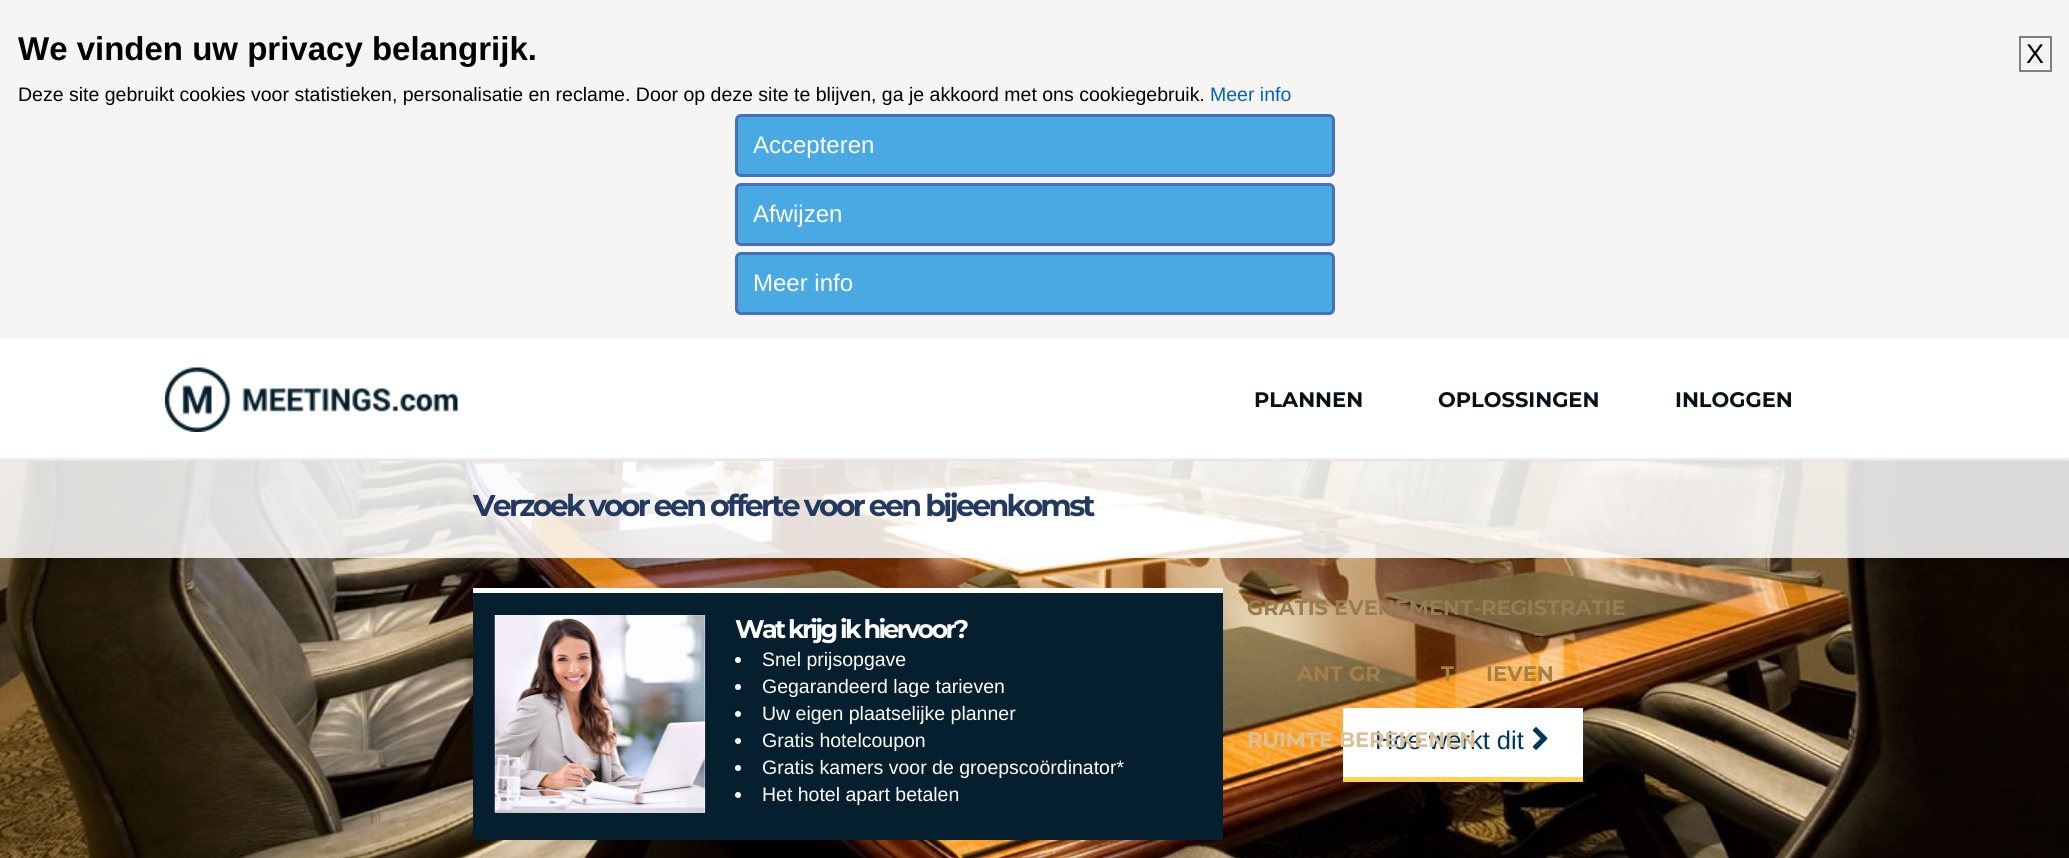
import math
import cairocffi as cairo

surface = cairo.ImageSurface(cairo.FORMAT_RGB24, 2069, 858)
cr = cairo.Context(surface)
options = cairo.FontOptions()
options.set_hint_metrics(cairo.HINT_METRICS_OFF)
options.set_hint_style(cairo.HINT_STYLE_NONE)
cr.set_font_options(options)
cr.set_miter_limit(4)


def use_color(code):
    cr.set_source_rgb(*(v / 255 for v in bytes.fromhex(code[-6:])))


def spaced_text(x, y, s, letter, word):
    cr.move_to(x, y)
    for ch in s:
        cr.show_text(ch)
        cr.rel_move_to(letter + word * (ch == ' '), 0)


def round_rect(x, y, w, h, r):
    cr.new_sub_path()
    for i, (u, v) in enumerate([(x + w - r, y + h - r), (x + r, y + h - r), (x + r, y + r), (x + w - r, y + r)]):
        cr.arc(u, v, r, i * math.pi / 2, (i + 1) * math.pi / 2)
    cr.close_path()


def picture(path, x, y, w, h):
    cr.save()
    cr.set_source_surface(cairo.ImageSurface.create_from_png(path), x, y)
    cr.rectangle(x, y, w, h)
    cr.fill()
    cr.restore()


use_color("#ffffff")
cr.paint()
use_color("#f7f4f4")
cr.rectangle(0, 0, 2069, 339)
cr.fill()
cr.select_font_face("Liberation Sans", cairo.FONT_SLANT_NORMAL, cairo.FONT_WEIGHT_BOLD)
cr.set_font_size(33)
use_color("#000000")
cr.move_to(18, 60)
cr.show_text("We vinden uw privacy belangrijk.")
cr.select_font_face("Liberation Sans")
cr.set_font_size(19.5)
cr.move_to(18, 101)
cr.show_text("Deze site gebruikt cookies voor statistieken, personalisatie en reclame. Door op deze site te blijven, ga je akkoord met ons cookiegebruik.")
use_color("#0065b8")
cr.move_to(1210, 101)
cr.show_text("Meer info")
cr.rectangle(2020, 37, 31, 34)
use_color("#808080")
cr.stroke()
cr.set_font_size(27)
use_color("#000000")
cr.move_to(2026, 63)
cr.show_text("X")
use_color("#49a9e3")
round_rect(736.5, 115.5, 597, 60, 4.5)
cr.fill_preserve()
use_color("#4770b9")
cr.set_line_width(3)
cr.stroke()
cr.set_font_size(24)
use_color("#ffffff")
cr.move_to(753, 153)
cr.show_text("Accepteren")
use_color("#49a9e3")
round_rect(736.5, 184.5, 597, 60, 4.5)
cr.fill_preserve()
use_color("#4770b9")
cr.stroke()
use_color("#ffffff")
cr.move_to(753, 222)
cr.show_text("Afwijzen")
use_color("#49a9e3")
round_rect(736.5, 253.5, 597, 60, 4.5)
cr.fill_preserve()
use_color("#4770b9")
cr.stroke()
use_color("#ffffff")
cr.move_to(753, 291)
cr.show_text("Meer info")
use_color("#eeeeee")
cr.rectangle(0, 458, 2069, 2)
cr.fill()
picture("img1.png", 165, 367, 293, 65)
cr.select_font_face("Montserrat", cairo.FONT_SLANT_NORMAL, cairo.FONT_WEIGHT_BOLD)
cr.set_font_size(21)
use_color("#071019")
cr.move_to(1254, 407)
cr.show_text("PLANNEN")
picture("img2.png", 0, 461, 2069, 397)
use_color("#977c54")
cr.move_to(1247, 615)
cr.show_text("GRATIS EVENEMENT-REGISTRATIE")
use_color("#a67e47")
cr.move_to(1297, 681)
cr.show_text("ANT GR")
cr.move_to(1441, 681)
cr.show_text("T")
cr.move_to(1486, 681)
cr.show_text("IEVEN")
use_color("#ffffff")
cr.rectangle(1343, 708, 240, 69)
cr.fill()
cr.select_font_face("Liberation Sans")
cr.set_font_size(25.5)
use_color("#003656")
cr.move_to(1375, 749)
cr.show_text("Hoe werkt dit")
cr.select_font_face("Montserrat", cairo.FONT_SLANT_NORMAL, cairo.FONT_WEIGHT_BOLD)
cr.set_font_size(21)
use_color("#dbc199")
cr.move_to(1247, 747)
cr.show_text("RUIMTE BEREKENEN")
use_color("#071019")
cr.move_to(1438, 407)
cr.show_text("OPLOSSINGEN")
cr.move_to(1675, 407)
cr.show_text("INLOGGEN")
use_color("#e6e1e1")
cr.rectangle(0, 460, 2069, 1)
cr.fill()
cr.set_source_rgba(1, 1, 1, 0.85)
cr.rectangle(0, 461, 2069, 97)
cr.fill()
cr.set_font_size(30)
use_color("#24395e")
spaced_text(473, 516, "Verzoek voor een offerte voor een bijeenkomst", -2.7, 0)
use_color("#051f2e")
cr.rectangle(473, 593, 750, 247)
cr.fill()
use_color("#ffffff")
cr.rectangle(473, 588, 750, 5)
cr.fill()
cr.rectangle(495, 615, 210, 198)
cr.fill()
picture("img3.png", 494, 615, 212, 198)
cr.set_font_size(25.5)
spaced_text(735, 638, "Wat krijg ik hiervoor?", -2.7, 0)
cr.new_path()
cr.arc(738, 660, 3, 0, 2 * math.pi)
cr.fill()
cr.select_font_face("Liberation Sans")
cr.set_font_size(19.5)
cr.move_to(762, 666)
cr.show_text("Snel prijsopgave")
cr.new_path()
cr.arc(738, 687, 3, 0, 2 * math.pi)
cr.fill()
cr.move_to(762, 693)
cr.show_text("Gegarandeerd lage tarieven")
cr.new_path()
cr.arc(738, 714, 3, 0, 2 * math.pi)
cr.fill()
cr.move_to(762, 720)
cr.show_text("Uw eigen plaatselijke planner")
cr.new_path()
cr.arc(738, 741, 3, 0, 2 * math.pi)
cr.fill()
cr.move_to(762, 747)
cr.show_text("Gratis hotelcoupon")
cr.new_path()
cr.arc(738, 768, 3, 0, 2 * math.pi)
cr.fill()
cr.move_to(762, 774)
cr.show_text("Gratis kamers voor de groepscoördinator*")
cr.new_path()
cr.arc(738, 795, 3, 0, 2 * math.pi)
cr.fill()
cr.move_to(762, 801)
cr.show_text("Het hotel apart betalen")
use_color("#ffd251")
cr.rectangle(1343, 777, 240, 5)
cr.fill()
picture("img4.png", 1532, 727, 16, 23)
surface.write_to_png("result.png")
